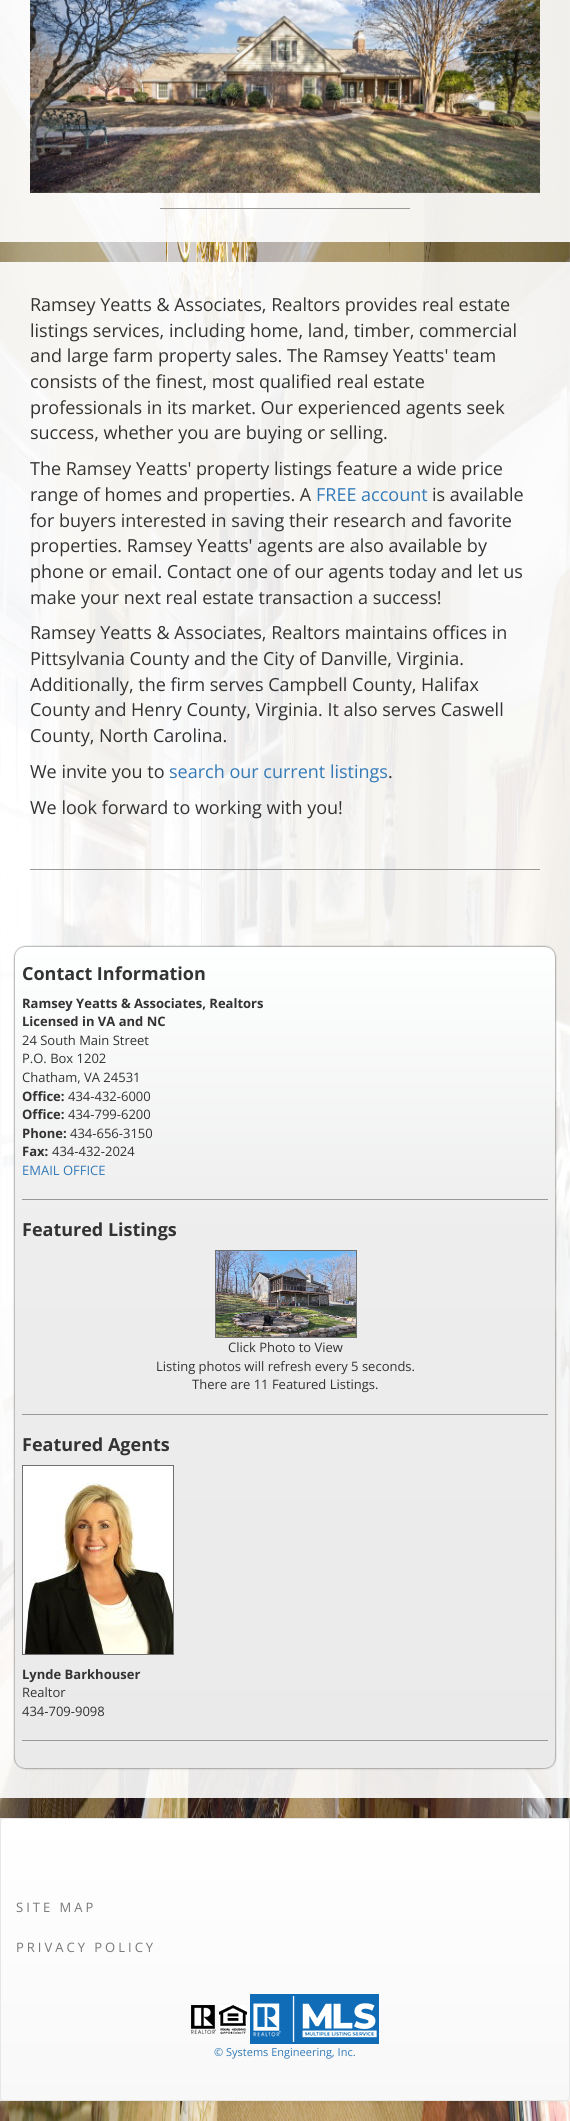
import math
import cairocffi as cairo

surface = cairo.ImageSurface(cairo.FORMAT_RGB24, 570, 2121)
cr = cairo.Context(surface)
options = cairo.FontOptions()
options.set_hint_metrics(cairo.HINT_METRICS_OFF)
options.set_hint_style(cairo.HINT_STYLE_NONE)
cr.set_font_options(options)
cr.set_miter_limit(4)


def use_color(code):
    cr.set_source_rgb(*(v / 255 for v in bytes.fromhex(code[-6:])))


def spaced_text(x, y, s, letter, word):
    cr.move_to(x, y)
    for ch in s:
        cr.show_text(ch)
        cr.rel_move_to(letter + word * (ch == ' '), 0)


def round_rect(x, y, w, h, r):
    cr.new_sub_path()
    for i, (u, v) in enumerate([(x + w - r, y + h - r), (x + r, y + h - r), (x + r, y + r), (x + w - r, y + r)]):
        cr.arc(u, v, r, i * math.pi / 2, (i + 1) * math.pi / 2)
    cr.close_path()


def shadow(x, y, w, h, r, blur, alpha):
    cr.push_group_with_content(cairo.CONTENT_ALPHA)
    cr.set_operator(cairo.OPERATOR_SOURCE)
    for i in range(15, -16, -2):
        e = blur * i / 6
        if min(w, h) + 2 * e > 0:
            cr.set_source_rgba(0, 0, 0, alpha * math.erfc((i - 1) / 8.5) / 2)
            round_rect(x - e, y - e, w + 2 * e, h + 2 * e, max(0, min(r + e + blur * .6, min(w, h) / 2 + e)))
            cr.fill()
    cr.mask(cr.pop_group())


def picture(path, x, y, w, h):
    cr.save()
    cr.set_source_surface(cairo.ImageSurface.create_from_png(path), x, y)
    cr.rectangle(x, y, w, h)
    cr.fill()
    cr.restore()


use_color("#ffffff")
cr.paint()
picture("img1.png", 0, 0, 570, 2121)
cr.set_source_rgba(1, 1, 1, 0.9)
cr.rectangle(0, 0, 570, 242)
cr.fill()
picture("img2.png", 30, 0, 510, 193)
gradient = cairo.LinearGradient(30, 77, 107, 77)
gradient.add_color_stop_rgba(0, 0, 0, 0, 0.25)
gradient.add_color_stop_rgba(1, 0, 0, 0, 0)
cr.set_source(gradient)
cr.rectangle(30, 0, 70, 193)
cr.fill()
cr.select_font_face("Liberation Serif")
cr.set_font_size(20)
use_color("#bcb5b2")
cr.move_to(65, 84)
cr.show_text("‹")
gradient = cairo.LinearGradient(464, 77, 540, 77)
gradient.add_color_stop_rgba(0, 0, 0, 0, 0)
gradient.add_color_stop_rgba(1, 0, 0, 0, 0.25)
cr.set_source(gradient)
cr.rectangle(471, 0, 69, 193)
cr.fill()
use_color("#c0c2ba")
cr.move_to(498, 84)
cr.show_text("›")
use_color("#999999")
cr.rectangle(160, 208, 250, 1)
cr.fill()
cr.set_source_rgba(1, 1, 1, 0.9)
cr.rectangle(0, 262, 570, 1536)
cr.fill()
cr.select_font_face("Open Sans")
cr.set_font_size(18)
use_color("#333333")
cr.move_to(30, 311)
cr.show_text("Ramsey Yeatts & Associates, Realtors provides real estate")
cr.move_to(30, 337)
cr.show_text("listings services, including home, land, timber, commercial")
cr.move_to(30, 362)
cr.show_text("and large farm property sales. The Ramsey Yeatts' team")
cr.move_to(30, 388)
cr.show_text("consists of the finest, most qualified real estate")
cr.move_to(30, 414)
cr.show_text("professionals in its market. Our experienced agents seek")
cr.move_to(30, 439)
cr.show_text("success, whether you are buying or selling.")
cr.move_to(30, 475)
cr.show_text("The Ramsey Yeatts' property listings feature a wide price")
cr.move_to(30, 501)
cr.show_text("range of homes and properties. A")
use_color("#337ab7")
cr.move_to(316, 501)
cr.show_text("FREE account")
use_color("#333333")
cr.move_to(432, 501)
cr.show_text("is available")
cr.move_to(30, 527)
cr.show_text("for buyers interested in saving their research and favorite")
cr.move_to(30, 552)
cr.show_text("properties. Ramsey Yeatts' agents are also available by")
cr.move_to(30, 578)
cr.show_text("phone or email. Contact one of our agents today and let us")
cr.move_to(30, 604)
cr.show_text("make your next real estate transaction a success!")
cr.move_to(30, 639)
cr.show_text("Ramsey Yeatts & Associates, Realtors maintains offices in")
cr.move_to(30, 665)
cr.show_text("Pittsylvania County and the City of Danville, Virginia.")
cr.move_to(30, 691)
cr.show_text("Additionally, the firm serves Campbell County, Halifax")
cr.move_to(30, 716)
cr.show_text("County and Henry County, Virginia. It also serves Caswell")
cr.move_to(30, 742)
cr.show_text("County, North Carolina.")
cr.move_to(30, 778)
cr.show_text("We invite you to")
use_color("#337ab7")
cr.move_to(169, 778)
cr.show_text("search our current listings")
use_color("#333333")
cr.move_to(388, 778)
cr.show_text(".")
cr.move_to(30, 814)
cr.show_text("We look forward to working with you!")
use_color("#999999")
cr.rectangle(30, 869, 510, 1)
cr.fill()
use_color("#000000")
shadow(15, 947, 540, 821, 10, 1, 0.75)
gradient = cairo.LinearGradient(285, 947, 285, 1768)
gradient.add_color_stop_rgba(0, 0.996, 1, 1, 1)
gradient.add_color_stop_rgba(0.35, 0.929, 0.929, 0.929, 1)
gradient.add_color_stop_rgba(1, 0.918, 0.918, 0.918, 1)
cr.set_source(gradient)
round_rect(15, 947, 540, 821, 10)
cr.fill()
cr.select_font_face("Open Sans", cairo.FONT_SLANT_NORMAL, cairo.FONT_WEIGHT_BOLD)
use_color("#333333")
cr.move_to(22, 980)
cr.show_text("Contact Information")
cr.set_font_size(13)
cr.move_to(22, 1008)
cr.show_text("Ramsey Yeatts & Associates, Realtors")
cr.move_to(22, 1026)
cr.show_text("Licensed in VA and NC")
cr.select_font_face("Open Sans")
cr.move_to(22, 1045)
cr.show_text("24 South Main Street")
cr.move_to(22, 1063)
cr.show_text("P.O. Box 1202")
cr.move_to(22, 1082)
cr.show_text("Chatham, VA 24531")
cr.select_font_face("Open Sans", cairo.FONT_SLANT_NORMAL, cairo.FONT_WEIGHT_BOLD)
cr.move_to(22, 1101)
cr.show_text("Office:")
cr.select_font_face("Open Sans")
cr.move_to(68, 1101)
cr.show_text("434-432-6000")
cr.select_font_face("Open Sans", cairo.FONT_SLANT_NORMAL, cairo.FONT_WEIGHT_BOLD)
cr.move_to(22, 1119)
cr.show_text("Office:")
cr.select_font_face("Open Sans")
cr.move_to(68, 1119)
cr.show_text("434-799-6200")
cr.select_font_face("Open Sans", cairo.FONT_SLANT_NORMAL, cairo.FONT_WEIGHT_BOLD)
cr.move_to(22, 1138)
cr.show_text("Phone:")
cr.select_font_face("Open Sans")
cr.move_to(70, 1138)
cr.show_text("434-656-3150")
cr.select_font_face("Open Sans", cairo.FONT_SLANT_NORMAL, cairo.FONT_WEIGHT_BOLD)
cr.move_to(22, 1156)
cr.show_text("Fax:")
cr.select_font_face("Open Sans")
cr.move_to(52, 1156)
cr.show_text("434-432-2024")
use_color("#337ab7")
cr.move_to(22, 1175)
cr.show_text("EMAIL OFFICE")
use_color("#999999")
cr.rectangle(22, 1199, 526, 1)
cr.fill()
cr.select_font_face("Open Sans", cairo.FONT_SLANT_NORMAL, cairo.FONT_WEIGHT_BOLD)
cr.set_font_size(18)
use_color("#333333")
cr.move_to(22, 1236)
cr.show_text("Featured Listings")
cr.rectangle(215.5, 1250.5, 141, 87)
use_color("#6f6f6f")
cr.set_line_width(1)
cr.stroke()
picture("img3.png", 216, 1251, 140, 86)
cr.select_font_face("Open Sans")
cr.set_font_size(13)
use_color("#333333")
cr.move_to(228, 1352)
cr.show_text("Click Photo to View")
cr.move_to(156, 1371)
cr.show_text("Listing photos will refresh every 5 seconds.")
cr.move_to(192, 1389)
cr.show_text("There are 11 Featured Listings.")
use_color("#999999")
cr.rectangle(22, 1414, 526, 1)
cr.fill()
cr.select_font_face("Open Sans", cairo.FONT_SLANT_NORMAL, cairo.FONT_WEIGHT_BOLD)
cr.set_font_size(18)
use_color("#333333")
cr.move_to(22, 1451)
cr.show_text("Featured Agents")
cr.rectangle(22.5, 1465.5, 151, 189)
use_color("#6f6f6f")
cr.stroke()
picture("img4.png", 23, 1466, 150, 188)
cr.set_font_size(13)
use_color("#333333")
cr.move_to(22, 1679)
cr.show_text("Lynde Barkhouser")
cr.select_font_face("Open Sans")
cr.move_to(22, 1697)
cr.show_text("Realtor")
cr.move_to(22, 1716)
cr.show_text("434-709-9098")
use_color("#999999")
cr.rectangle(22, 1740, 526, 1)
cr.fill()
cr.set_source_rgba(1, 1, 1, 0.9)
cr.rectangle(0, 1818, 570, 283)
cr.fill()
use_color("#000000")
shadow(0, 1819, 570, 283, 4, 2.5, 0.07)
cr.save()
round_rect(0, 1818, 570, 283, 4)
cr.clip()
gradient = cairo.LinearGradient(285, 1819, 285, 2100)
gradient.add_color_stop_rgba(0, 1, 1, 1, 1)
gradient.add_color_stop_rgba(1, 0.973, 0.973, 0.973, 1)
cr.set_source(gradient)
cr.rectangle(0, 1819, 570, 281)
cr.fill()
cr.restore()
round_rect(0.5, 1818.5, 569, 282, 3.5)
use_color("#e7e7e7")
cr.stroke()
use_color("#777777")
spaced_text(16, 1912, "SITE MAP", 3, 0)
spaced_text(16, 1952, "PRIVACY POLICY", 3, 0)
picture("img5.png", 191, 2005, 25, 29)
picture("img6.png", 219, 2005, 28, 29)
picture("img7.png", 250, 1994, 129, 50)
cr.set_font_size(11)
use_color("#337ab7")
cr.move_to(214, 2056)
cr.show_text("© Systems Engineering, Inc.")
surface.write_to_png("result.png")
